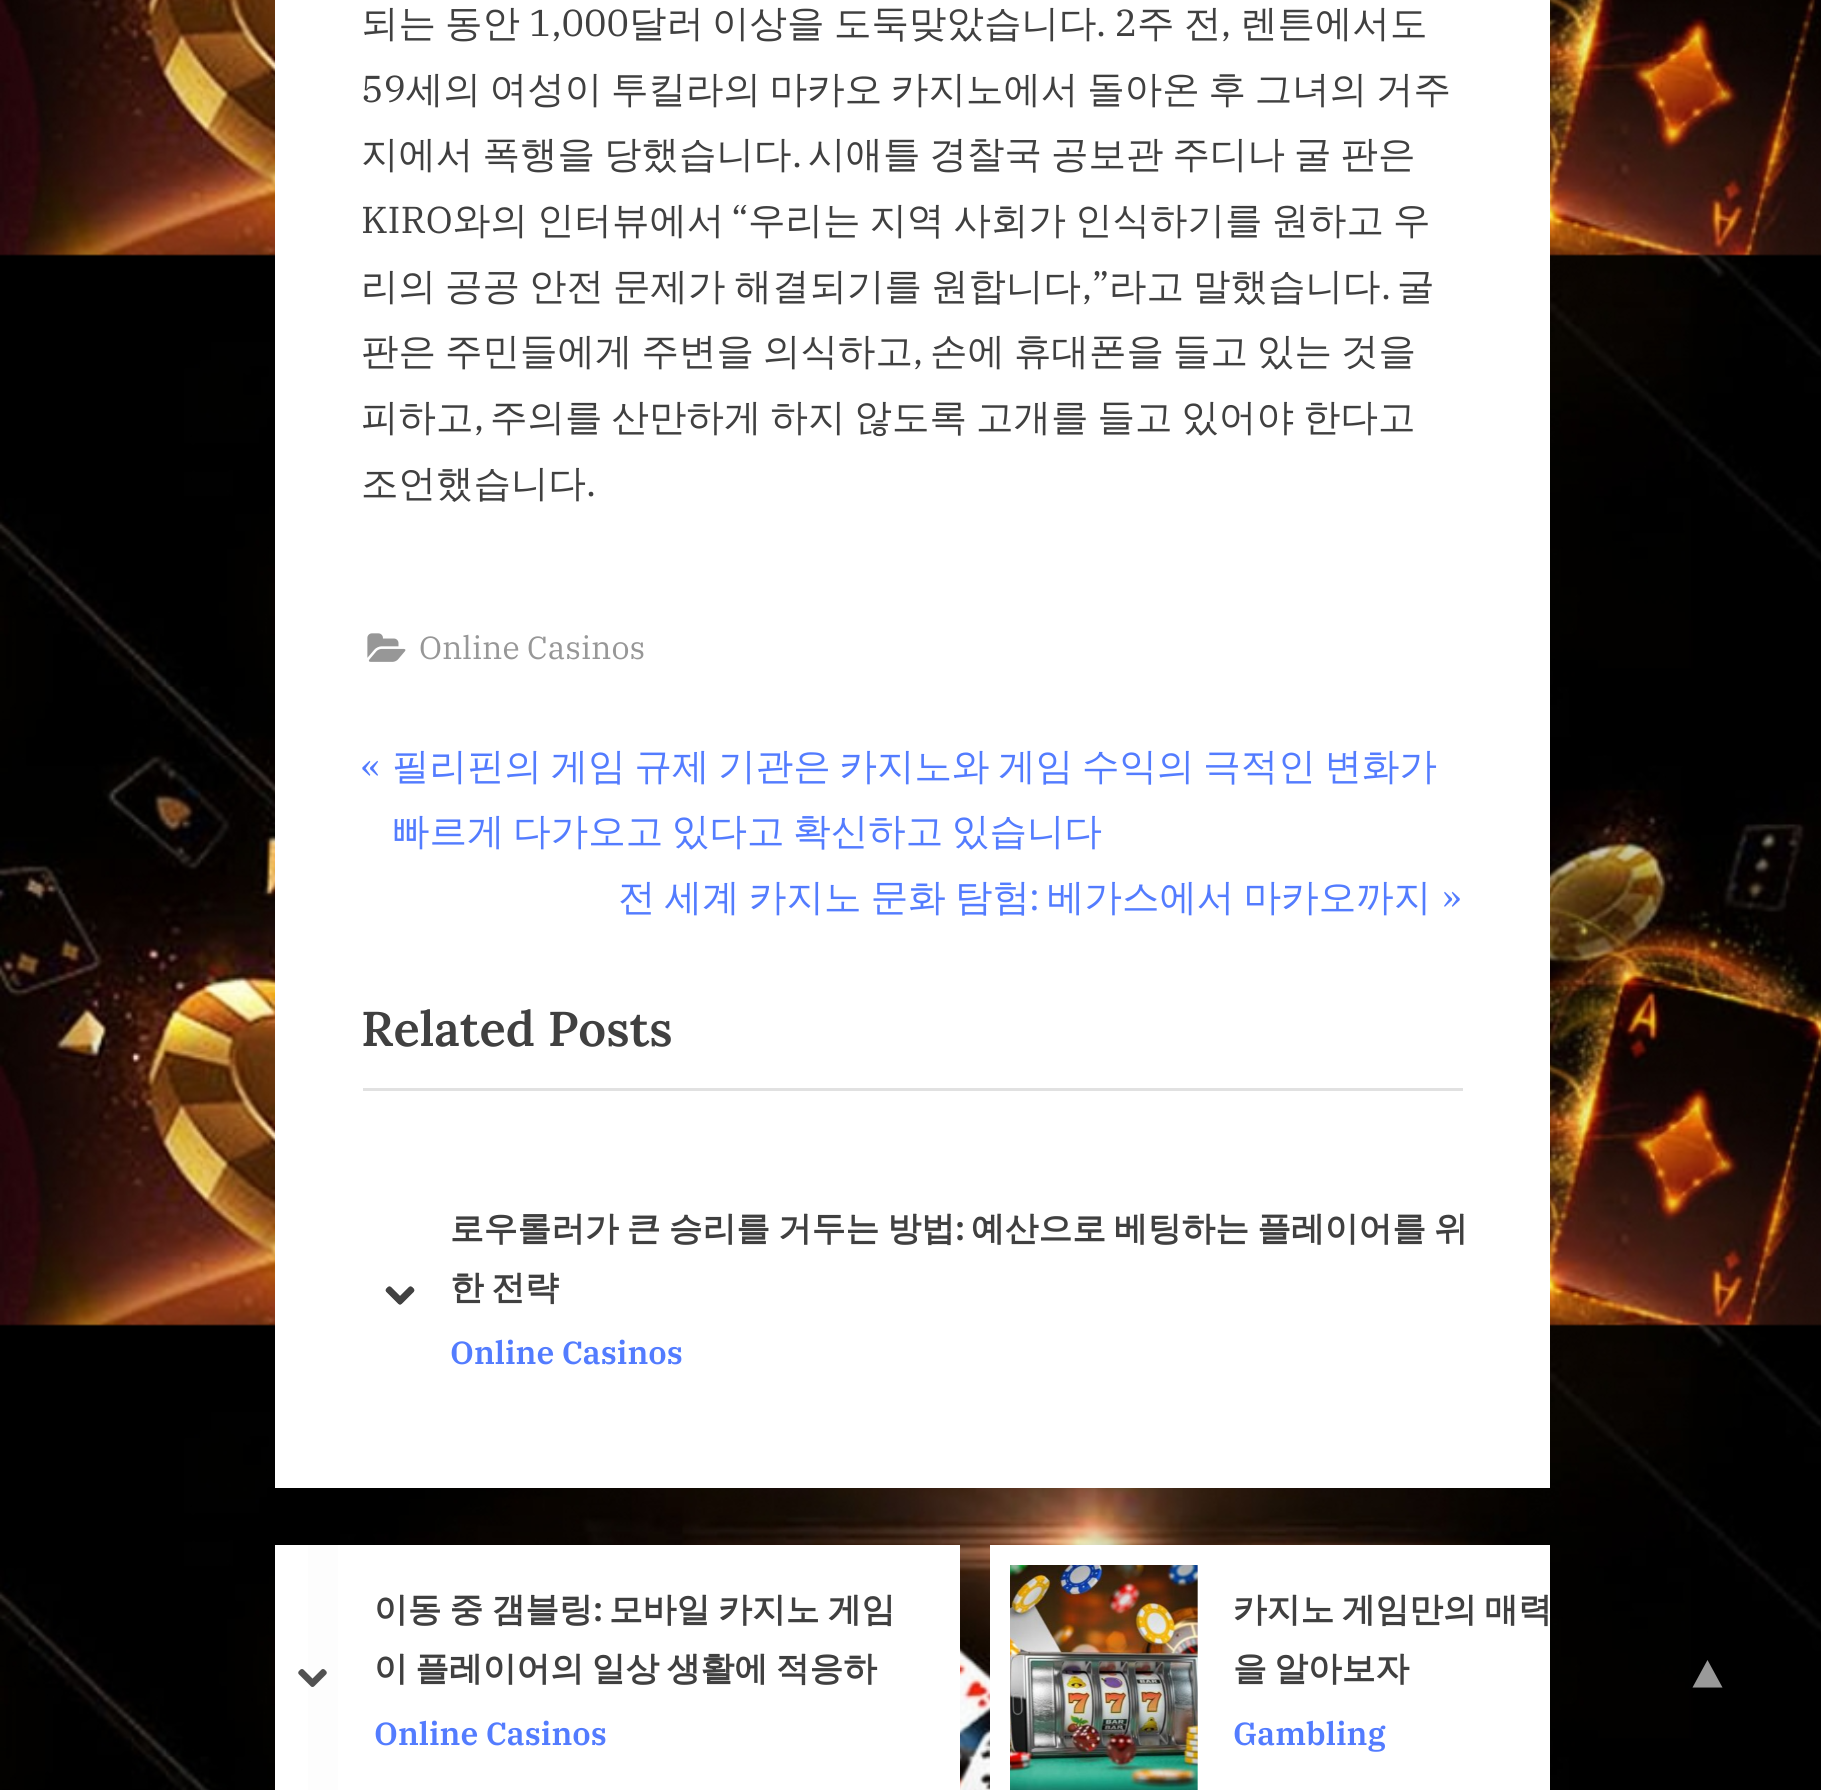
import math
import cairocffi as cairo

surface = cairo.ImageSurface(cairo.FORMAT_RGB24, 1821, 1790)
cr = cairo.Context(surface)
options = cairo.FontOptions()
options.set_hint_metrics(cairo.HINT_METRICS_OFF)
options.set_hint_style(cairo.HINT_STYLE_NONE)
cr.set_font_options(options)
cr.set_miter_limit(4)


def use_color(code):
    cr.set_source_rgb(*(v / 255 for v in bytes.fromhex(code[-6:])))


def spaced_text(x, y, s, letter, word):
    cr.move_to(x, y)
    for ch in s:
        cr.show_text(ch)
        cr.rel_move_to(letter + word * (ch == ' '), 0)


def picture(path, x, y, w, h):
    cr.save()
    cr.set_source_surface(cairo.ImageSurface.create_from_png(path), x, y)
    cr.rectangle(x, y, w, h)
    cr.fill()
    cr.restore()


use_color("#ffffff")
cr.paint()
picture("img1.png", 0, 0, 1821, 1790)
use_color("#ffffff")
cr.rectangle(275, 0, 1275, 1488)
cr.fill()
cr.select_font_face("WenQuanYi Zen Hei Medium")
cr.set_font_size(37.5)
use_color("#404040")
cr.move_to(361, 36)
cr.show_text("되는")
cr.move_to(445, 36)
cr.show_text("동안")
cr.select_font_face("IBM Plex Serif")
cr.move_to(529, 36)
cr.show_text("1,000")
cr.select_font_face("WenQuanYi Zen Hei Medium")
cr.move_to(629, 36)
cr.show_text("달러")
cr.move_to(712, 36)
cr.show_text("이상을")
cr.move_to(834, 36)
cr.show_text("도둑맞았습니다")
cr.select_font_face("IBM Plex Serif")
cr.move_to(1096, 36)
cr.show_text(". 2")
cr.select_font_face("WenQuanYi Zen Hei Medium")
cr.move_to(1137, 36)
cr.show_text("주")
cr.move_to(1184, 36)
cr.show_text("전")
cr.select_font_face("IBM Plex Serif")
cr.move_to(1221, 36)
cr.show_text(",")
cr.select_font_face("WenQuanYi Zen Hei Medium")
cr.move_to(1240, 36)
cr.show_text("렌튼에서도")
cr.select_font_face("IBM Plex Serif")
cr.move_to(361, 102)
cr.show_text("59")
cr.select_font_face("WenQuanYi Zen Hei Medium")
spaced_text(406, 102, "세의 여성이 투킬라의 마카오 카지노에서 돌아온 후 그녀의 거주", 0, -2.5)
spaced_text(361, 167, "지에서 폭행을 당했습니다", 0, -2.25)
cr.select_font_face("IBM Plex Serif")
cr.move_to(792, 167)
cr.show_text(".")
cr.select_font_face("WenQuanYi Zen Hei Medium")
spaced_text(808, 167, "시애틀 경찰국 공보관 주디나 굴 판은", 0, -2.25)
cr.select_font_face("IBM Plex Serif")
cr.move_to(361, 233)
cr.show_text("KIRO")
cr.select_font_face("WenQuanYi Zen Hei Medium")
spaced_text(453, 233, "와의 인터뷰에서", 0, -2.25)
cr.select_font_face("IBM Plex Serif")
cr.move_to(731, 233)
cr.show_text("“")
cr.select_font_face("WenQuanYi Zen Hei Medium")
spaced_text(748, 233, "우리는 지역 사회가 인식하기를 원하고 우", 0, -2.25)
spaced_text(361, 299, "리의 공공 안전 문제가 해결되기를 원합니다", 0, -2.25)
cr.select_font_face("IBM Plex Serif")
cr.move_to(1082, 299)
cr.show_text(",”")
cr.select_font_face("WenQuanYi Zen Hei Medium")
spaced_text(1109, 299, "라고 말했습니다", 0, -2.25)
cr.select_font_face("IBM Plex Serif")
cr.move_to(1381, 299)
cr.show_text(".")
cr.select_font_face("WenQuanYi Zen Hei Medium")
cr.move_to(1397, 299)
cr.show_text("굴")
spaced_text(361, 364, "판은 주민들에게 주변을 의식하고", 0, -2.25)
cr.select_font_face("IBM Plex Serif")
cr.move_to(913, 364)
cr.show_text(",")
cr.select_font_face("WenQuanYi Zen Hei Medium")
spaced_text(930, 364, "손에 휴대폰을 들고 있는 것을", 0, -2.25)
cr.move_to(361, 430)
cr.show_text("피하고")
cr.select_font_face("IBM Plex Serif")
cr.move_to(474, 430)
cr.show_text(",")
cr.select_font_face("WenQuanYi Zen Hei Medium")
spaced_text(490, 430, "주의를 산만하게 하지 않도록 고개를 들고 있어야 한다고", 0, -2.25)
cr.move_to(361, 496)
cr.show_text("조언했습니다")
cr.select_font_face("IBM Plex Serif")
cr.move_to(586, 496)
cr.show_text(".")
picture("img2.png", 367, 633, 39, 29)
cr.set_font_size(32)
use_color("#979797")
cr.move_to(419, 659)
cr.show_text("Online Casinos")
cr.set_font_size(37.5)
use_color("#537cff")
cr.move_to(361, 779)
cr.show_text("«")
cr.select_font_face("WenQuanYi Zen Hei Medium")
spaced_text(392, 779, "필리핀의 게임 규제 기관은 카지노와 게임 수익의 극적인 변화가", 0, -2.5)
spaced_text(392, 844, "빠르게 다가오고 있다고 확신하고 있습니다", 0, -2.5)
spaced_text(618, 910, "전 세계 카지노 문화 탐험", 0, -2)
cr.select_font_face("IBM Plex Serif")
cr.move_to(1029, 910)
cr.show_text(":")
cr.select_font_face("WenQuanYi Zen Hei Medium")
spaced_text(1047, 910, "베가스에서 마카오까지", 0, -2)
cr.select_font_face("IBM Plex Serif")
cr.move_to(1442, 910)
cr.show_text("»")
use_color("#e1e1e1")
cr.rectangle(363, 1088, 1100, 3)
cr.fill()
cr.select_font_face("Lora SemiBold")
cr.set_font_size(48.75)
use_color("#404040")
cr.move_to(361, 1046)
cr.show_text("Related Posts")
picture("img3.png", 385, 1286, 30, 19)
picture("img4.png", 385, 1286, 30, 19)
cr.select_font_face("WenQuanYi Zen Hei", cairo.FONT_SLANT_NORMAL, cairo.FONT_WEIGHT_BOLD)
cr.set_font_size(33.75)
spaced_text(450, 1240, "로우롤러가 큰 승리를 거두는 방법", 0, -2)
cr.select_font_face("IBM Plex Serif SemiBold")
cr.move_to(955, 1240)
cr.show_text(":")
cr.select_font_face("WenQuanYi Zen Hei", cairo.FONT_SLANT_NORMAL, cairo.FONT_WEIGHT_BOLD)
spaced_text(971, 1240, "예산으로 베팅하는 플레이어를 위", 0, -2)
spaced_text(450, 1299, "한 전략", 0, -2.5)
cr.select_font_face("IBM Plex Serif SemiBold")
cr.set_font_size(32)
use_color("#537cff")
cr.move_to(450, 1364)
cr.show_text("Online Casinos")
cr.set_source_rgba(1, 1, 1, 0.9)
cr.rectangle(308, 1545, 30, 245)
cr.fill()
use_color("#ffffff")
cr.rectangle(275, 1545, 33, 245)
cr.fill()
picture("img5.png", 298, 1669, 29, 18)
cr.set_source_rgba(1, 1, 1, 0.9)
cr.rectangle(298, 1545, 40, 245)
cr.fill()
picture("img6.png", 298, 1669, 29, 18)
use_color("#ffffff")
cr.rectangle(338, 1545, 622, 245)
cr.fill()
cr.select_font_face("WenQuanYi Zen Hei", cairo.FONT_SLANT_NORMAL, cairo.FONT_WEIGHT_BOLD)
cr.set_font_size(33.75)
use_color("#404040")
spaced_text(374, 1621, "이동 중 갬블링", 0, -2)
cr.select_font_face("IBM Plex Serif SemiBold")
cr.move_to(593, 1621)
cr.show_text(":")
cr.select_font_face("WenQuanYi Zen Hei", cairo.FONT_SLANT_NORMAL, cairo.FONT_WEIGHT_BOLD)
spaced_text(609, 1621, "모바일 카지노 게임", 0, -2)
spaced_text(374, 1680, "이 플레이어의 일상 생활에 적응하", 0, -2.5)
cr.select_font_face("IBM Plex Serif SemiBold")
cr.set_font_size(32)
use_color("#537cff")
cr.move_to(374, 1745)
cr.show_text("Online Casinos")
use_color("#ffffff")
cr.rectangle(990, 1545, 560, 245)
cr.fill()
picture("img7.png", 1010, 1565, 188, 225)
cr.select_font_face("WenQuanYi Zen Hei", cairo.FONT_SLANT_NORMAL, cairo.FONT_WEIGHT_BOLD)
cr.set_font_size(33.75)
use_color("#404040")
spaced_text(1233, 1621, "카지노 게임만의 매력", 0, -2.5)
spaced_text(1233, 1680, "을 알아보자", 0, -2.5)
cr.select_font_face("IBM Plex Serif SemiBold")
cr.set_font_size(32)
use_color("#537cff")
cr.move_to(1233, 1745)
cr.show_text("Gambling")
use_color("#999999")
cr.new_path()
cr.move_to(1722.5, 1687.5)
cr.line_to(1692.5, 1687.5)
cr.line_to(1707.5, 1660)
cr.close_path()
cr.fill()
surface.write_to_png("result.png")
